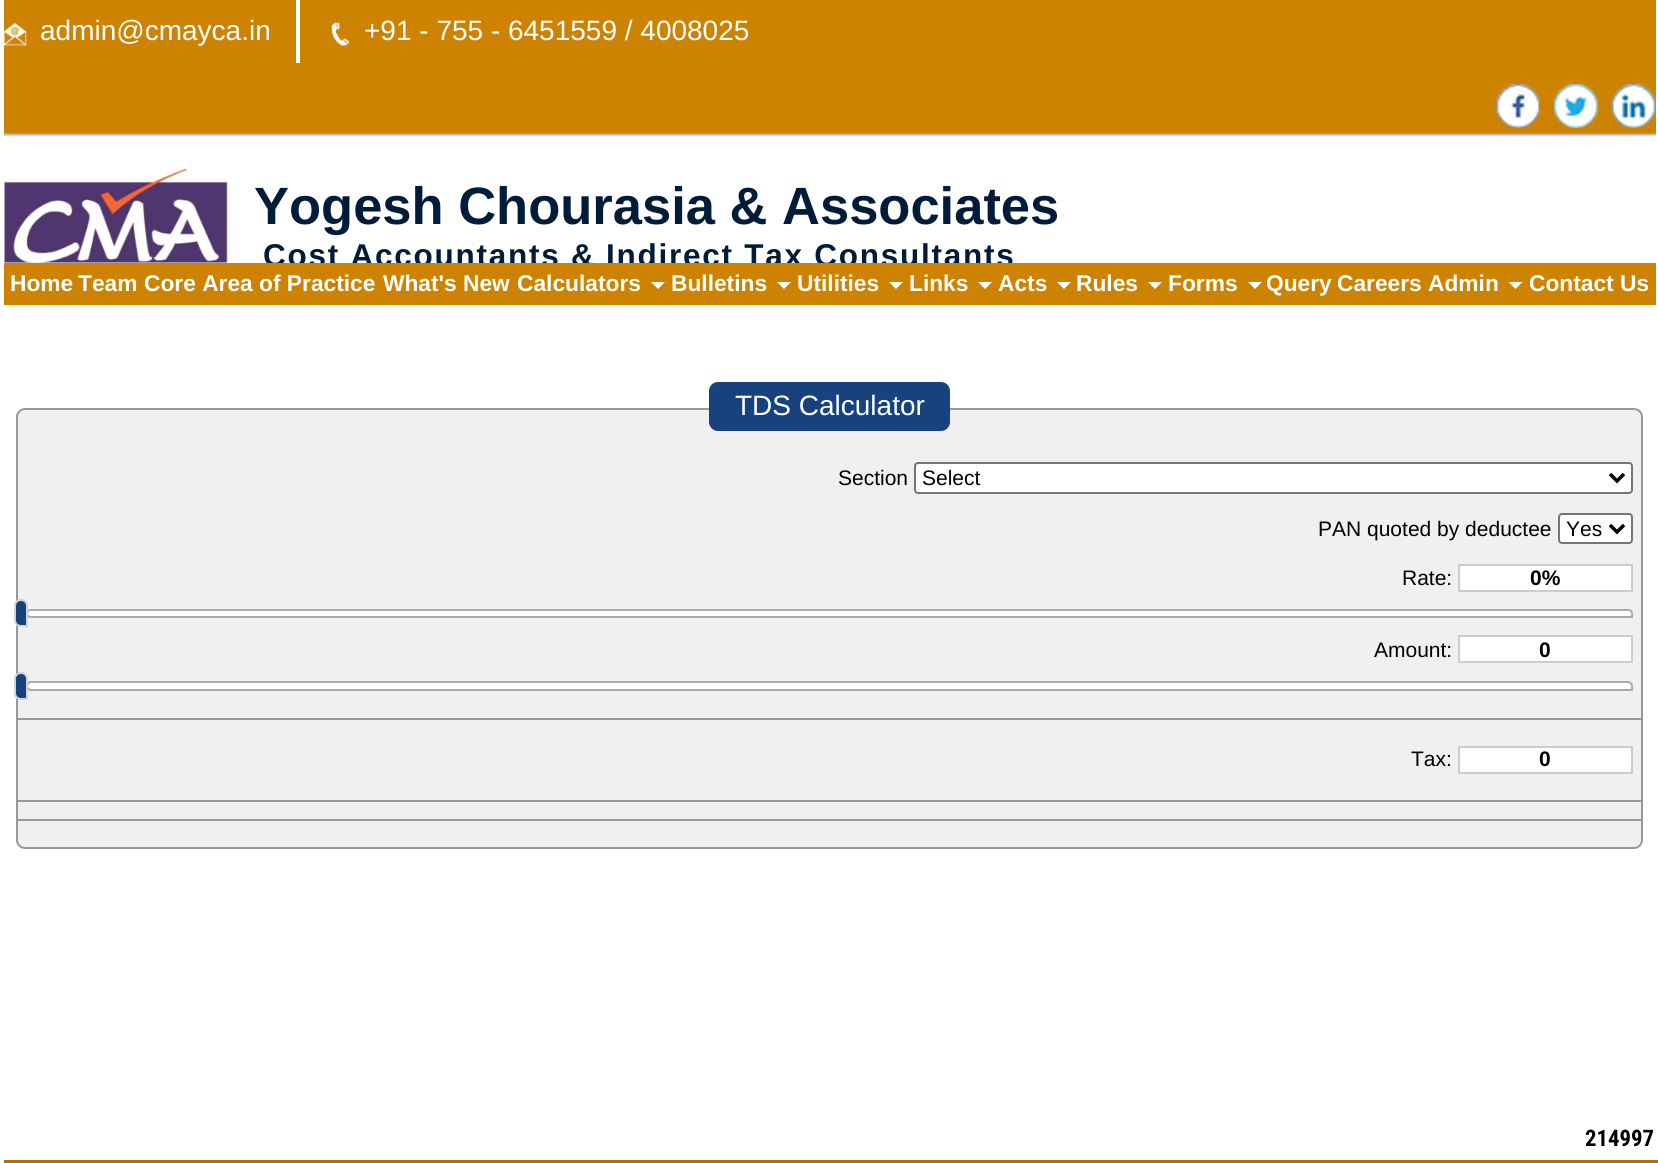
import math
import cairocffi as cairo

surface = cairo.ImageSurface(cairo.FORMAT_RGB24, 1658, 1163)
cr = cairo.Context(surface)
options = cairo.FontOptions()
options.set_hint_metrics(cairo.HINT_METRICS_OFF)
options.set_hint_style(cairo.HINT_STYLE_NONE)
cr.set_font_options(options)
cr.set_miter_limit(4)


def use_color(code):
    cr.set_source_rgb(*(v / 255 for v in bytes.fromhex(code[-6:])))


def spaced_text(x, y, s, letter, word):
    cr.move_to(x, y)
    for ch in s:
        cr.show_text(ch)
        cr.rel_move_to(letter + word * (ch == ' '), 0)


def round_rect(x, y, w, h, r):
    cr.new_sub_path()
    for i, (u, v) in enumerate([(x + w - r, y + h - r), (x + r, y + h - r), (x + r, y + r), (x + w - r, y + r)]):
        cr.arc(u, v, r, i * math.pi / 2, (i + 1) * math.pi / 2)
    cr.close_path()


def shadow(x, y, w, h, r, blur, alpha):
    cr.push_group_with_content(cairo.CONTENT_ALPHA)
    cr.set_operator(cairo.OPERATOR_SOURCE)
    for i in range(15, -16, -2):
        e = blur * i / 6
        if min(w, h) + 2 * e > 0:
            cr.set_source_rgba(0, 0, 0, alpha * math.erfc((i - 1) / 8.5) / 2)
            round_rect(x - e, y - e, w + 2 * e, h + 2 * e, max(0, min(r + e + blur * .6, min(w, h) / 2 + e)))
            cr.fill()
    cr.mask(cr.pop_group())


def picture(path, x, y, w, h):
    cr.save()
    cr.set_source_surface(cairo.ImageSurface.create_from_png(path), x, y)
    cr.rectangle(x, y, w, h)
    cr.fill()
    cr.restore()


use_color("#ffffff")
cr.paint()
cr.save()
cr.rectangle(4, 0, 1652, 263)
cr.clip()
use_color("#999999")
shadow(4, 2, 1652, 133, 0, 1, 1)
cr.restore()
use_color("#ce8300")
cr.rectangle(4, 0, 1652, 133)
cr.fill()
use_color("#ffffff")
cr.rectangle(296, 0, 4, 63)
cr.fill()
picture("img1.png", 4, 22, 23, 24)
cr.select_font_face("Liberation Sans")
cr.set_font_size(28)
cr.move_to(40, 40)
cr.show_text("admin@cmayca.in")
picture("img2.png", 331, 22, 18, 24)
cr.move_to(364, 40)
cr.show_text("+91 - 755 - 6451559 / 4008025")
picture("img3.png", 1496, 84, 44, 44)
picture("img4.png", 1554, 84, 44, 44)
picture("img5.png", 1611, 84, 45, 44)
picture("img6.png", 4, 168, 224, 95)
cr.select_font_face("Liberation Sans", cairo.FONT_SLANT_NORMAL, cairo.FONT_WEIGHT_BOLD)
cr.set_font_size(52.5)
use_color("#011c39")
cr.move_to(254, 224)
cr.show_text("Yogesh Chourasia & Associates")
cr.set_font_size(31.5)
spaced_text(263, 266, "Cost Accountants & Indirect Tax Consultants", 1.75, 0)
use_color("#ce8300")
cr.rectangle(4, 263, 1652, 42)
cr.fill()
cr.set_font_size(22.75)
use_color("#ffffff")
cr.move_to(10, 291)
cr.show_text("Home")
cr.move_to(78, 291)
cr.show_text("Team")
cr.move_to(144, 291)
cr.show_text("Core Area of Practice")
cr.move_to(383, 291)
cr.show_text("What's New")
cr.move_to(517, 291)
cr.show_text("Calculators")
cr.new_path()
cr.move_to(651, 282)
cr.line_to(665, 282)
cr.line_to(658, 289)
cr.close_path()
cr.fill()
cr.move_to(671, 291)
cr.show_text("Bulletins")
cr.new_path()
cr.move_to(777, 282)
cr.line_to(791, 282)
cr.line_to(784, 289)
cr.close_path()
cr.fill()
cr.move_to(797, 291)
cr.show_text("Utilities")
cr.new_path()
cr.move_to(889, 282)
cr.line_to(903, 282)
cr.line_to(896, 289)
cr.close_path()
cr.fill()
cr.move_to(909, 291)
cr.show_text("Links")
cr.new_path()
cr.move_to(978, 282)
cr.line_to(992, 282)
cr.line_to(985, 289)
cr.close_path()
cr.fill()
cr.move_to(998, 291)
cr.show_text("Acts")
cr.new_path()
cr.move_to(1057, 282)
cr.line_to(1071, 282)
cr.line_to(1064, 289)
cr.close_path()
cr.fill()
cr.move_to(1076, 291)
cr.show_text("Rules")
cr.new_path()
cr.move_to(1148, 282)
cr.line_to(1162, 282)
cr.line_to(1155, 289)
cr.close_path()
cr.fill()
cr.move_to(1168, 291)
cr.show_text("Forms")
cr.new_path()
cr.move_to(1248, 282)
cr.line_to(1262, 282)
cr.line_to(1255, 289)
cr.close_path()
cr.fill()
cr.move_to(1266, 291)
cr.show_text("Query")
cr.move_to(1337, 291)
cr.show_text("Careers")
cr.move_to(1428, 291)
cr.show_text("Admin")
cr.new_path()
cr.move_to(1508.5, 282)
cr.line_to(1522.5, 282)
cr.line_to(1515.5, 289)
cr.close_path()
cr.fill()
cr.move_to(1529, 291)
cr.show_text("Contact Us")
use_color("#f0f0f0")
round_rect(17, 409, 1625, 439, 8)
cr.fill_preserve()
use_color("#999999")
cr.stroke()
use_color("#18427d")
round_rect(709, 382, 241, 49, 9)
cr.fill()
cr.select_font_face("Liberation Sans")
cr.set_font_size(28)
use_color("#ffffff")
cr.move_to(735, 415)
cr.show_text("TDS Calculator")
use_color("#999999")
cr.rectangle(18, 819, 1624, 2)
cr.fill()
cr.rectangle(18, 718, 1624, 2)
cr.fill()
cr.set_font_size(21)
use_color("#000000")
cr.move_to(838, 485)
cr.show_text("Section")
use_color("#ffffff")
round_rect(915, 463, 717, 30, 3)
cr.fill_preserve()
use_color("#767676")
cr.stroke()
cr.new_path()
cr.move_to(1610, 474)
cr.line_to(1617, 481)
cr.line_to(1624, 474)
use_color("#000000")
cr.set_line_width(3.5)
cr.stroke()
cr.move_to(922, 485)
cr.show_text("Select")
cr.move_to(1318, 536)
cr.show_text("PAN quoted by deductee")
use_color("#ffffff")
round_rect(1559, 514, 73, 29, 3)
cr.fill_preserve()
use_color("#767676")
cr.set_line_width(2)
cr.stroke()
cr.new_path()
cr.move_to(1610, 525)
cr.line_to(1617, 532)
cr.line_to(1624, 525)
use_color("#000000")
cr.set_line_width(3.5)
cr.stroke()
cr.move_to(1566, 536)
cr.show_text("Yes")
cr.move_to(1402, 585)
cr.show_text("Rate:")
use_color("#ffffff")
cr.rectangle(1459, 565, 173, 26)
cr.fill_preserve()
use_color("#cccccc")
cr.set_line_width(2)
cr.stroke()
cr.select_font_face("Liberation Sans", cairo.FONT_SLANT_NORMAL, cairo.FONT_WEIGHT_BOLD)
use_color("#000000")
cr.move_to(1530, 585)
cr.show_text("0%")
use_color("#ffffff")
cr.new_path()
cr.move_to(30.5, 610)
cr.line_to(1628.5, 610)
cr.curve_to(1630.5, 610, 1632, 611.5, 1632, 613.5)
cr.line_to(1632, 617)
cr.line_to(30.5, 617)
cr.curve_to(28.5, 617, 27, 615.5, 27, 613.5)
cr.curve_to(27, 611.5, 28.5, 610, 30.5, 610)
cr.close_path()
cr.fill_preserve()
use_color("#aaaaaa")
cr.stroke()
use_color("#18427d")
cr.new_path()
cr.move_to(21, 600)
cr.curve_to(24.5, 600, 27, 602.5, 27, 606)
cr.line_to(27, 626)
cr.line_to(21, 626)
cr.curve_to(17.5, 626, 15, 623.5, 15, 620)
cr.line_to(15, 606)
cr.curve_to(15, 602.5, 17.5, 600, 21, 600)
cr.close_path()
cr.fill_preserve()
use_color("#d3d3d3")
cr.stroke()
cr.select_font_face("Liberation Sans")
use_color("#000000")
cr.move_to(1374, 657)
cr.show_text("Amount:")
use_color("#ffffff")
cr.rectangle(1459, 636, 173, 26)
cr.fill_preserve()
use_color("#cccccc")
cr.stroke()
cr.select_font_face("Liberation Sans", cairo.FONT_SLANT_NORMAL, cairo.FONT_WEIGHT_BOLD)
use_color("#000000")
cr.move_to(1539, 657)
cr.show_text("0")
use_color("#ffffff")
cr.new_path()
cr.move_to(31, 682)
cr.line_to(1628, 682)
cr.curve_to(1630, 682, 1632, 684, 1632, 686)
cr.line_to(1632, 690)
cr.line_to(31, 690)
cr.curve_to(29, 690, 27, 688, 27, 686)
cr.curve_to(27, 684, 29, 682, 31, 682)
cr.close_path()
cr.fill_preserve()
use_color("#aaaaaa")
cr.stroke()
use_color("#18427d")
cr.new_path()
cr.move_to(21, 673)
cr.curve_to(24.5, 673, 27, 675.5, 27, 679)
cr.line_to(27, 699)
cr.line_to(21, 699)
cr.curve_to(17.5, 699, 15, 696.5, 15, 693)
cr.line_to(15, 679)
cr.curve_to(15, 675.5, 17.5, 673, 21, 673)
cr.close_path()
cr.fill_preserve()
use_color("#d3d3d3")
cr.stroke()
use_color("#999999")
cr.rectangle(18, 800, 1624, 2)
cr.fill()
cr.select_font_face("Liberation Sans")
use_color("#000000")
cr.move_to(1411, 766)
cr.show_text("Tax:")
use_color("#ffffff")
cr.rectangle(1459, 747, 173, 26)
cr.fill_preserve()
use_color("#cccccc")
cr.stroke()
cr.select_font_face("Liberation Sans", cairo.FONT_SLANT_NORMAL, cairo.FONT_WEIGHT_BOLD)
use_color("#000000")
cr.move_to(1539, 766)
cr.show_text("0")
cr.select_font_face("Roboto Condensed", cairo.FONT_SLANT_NORMAL, cairo.FONT_WEIGHT_BOLD)
cr.set_font_size(22.75)
cr.move_to(1585, 1146)
cr.show_text("214997")
use_color("#b07001")
cr.rectangle(4, 1160, 1654, 3)
cr.fill()
surface.write_to_png("result.png")
